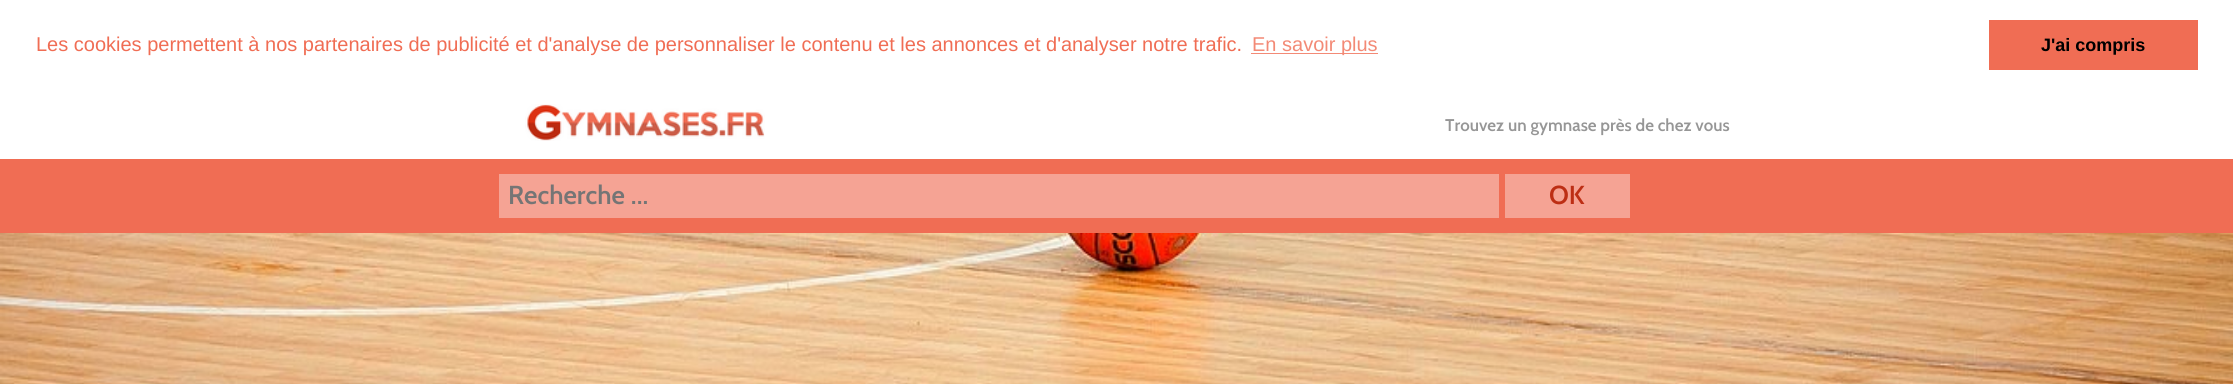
import math
import cairocffi as cairo

surface = cairo.ImageSurface(cairo.FORMAT_RGB24, 2233, 384)
cr = cairo.Context(surface)
options = cairo.FontOptions()
options.set_hint_metrics(cairo.HINT_METRICS_OFF)
options.set_hint_style(cairo.HINT_STYLE_NONE)
cr.set_font_options(options)
cr.set_miter_limit(4)


def use_color(code):
    cr.set_source_rgb(*(v / 255 for v in bytes.fromhex(code[-6:])))


def picture(path, x, y, w, h):
    cr.save()
    cr.set_source_surface(cairo.ImageSurface.create_from_png(path), x, y)
    cr.rectangle(x, y, w, h)
    cr.fill()
    cr.restore()


use_color("#ffffff")
cr.paint()
cr.select_font_face("Liberation Sans")
cr.set_font_size(20)
use_color("#f06d54")
cr.move_to(36, 51)
cr.show_text("Les cookies permettent à nos partenaires de publicité et d'analyse de personnaliser le contenu et les annonces et d'analyser notre trafic.")
use_color("#f38a76")
cr.rectangle(1251, 53, 127, 1)
cr.fill()
cr.move_to(1252, 51)
cr.show_text("En savoir plus")
use_color("#f06d54")
cr.rectangle(1989, 20, 209, 50)
cr.fill()
cr.select_font_face("Liberation Sans", cairo.FONT_SLANT_NORMAL, cairo.FONT_WEIGHT_BOLD)
cr.set_font_size(18)
use_color("#000000")
cr.move_to(2041, 51)
cr.show_text("J'ai compris")
picture("img1.png", 525, 104, 240, 37)
cr.select_font_face("Cabin SemiBold")
cr.set_font_size(17)
use_color("#969696")
cr.move_to(1445, 131)
cr.show_text("Trouvez un gymnase près de chez vous")
use_color("#f06d54")
cr.rectangle(0, 159, 2233, 74)
cr.fill()
use_color("#f5a394")
cr.rectangle(499, 174, 1000, 44)
cr.fill()
cr.set_font_size(26)
use_color("#757575")
cr.move_to(508, 204)
cr.show_text("Recherche ...")
use_color("#f5a394")
cr.rectangle(1505, 174, 125, 44)
cr.fill()
use_color("#bd2e14")
cr.move_to(1549, 204)
cr.show_text("OK")
picture("img2.png", 0, 233, 2233, 151)
surface.write_to_png("result.png")
